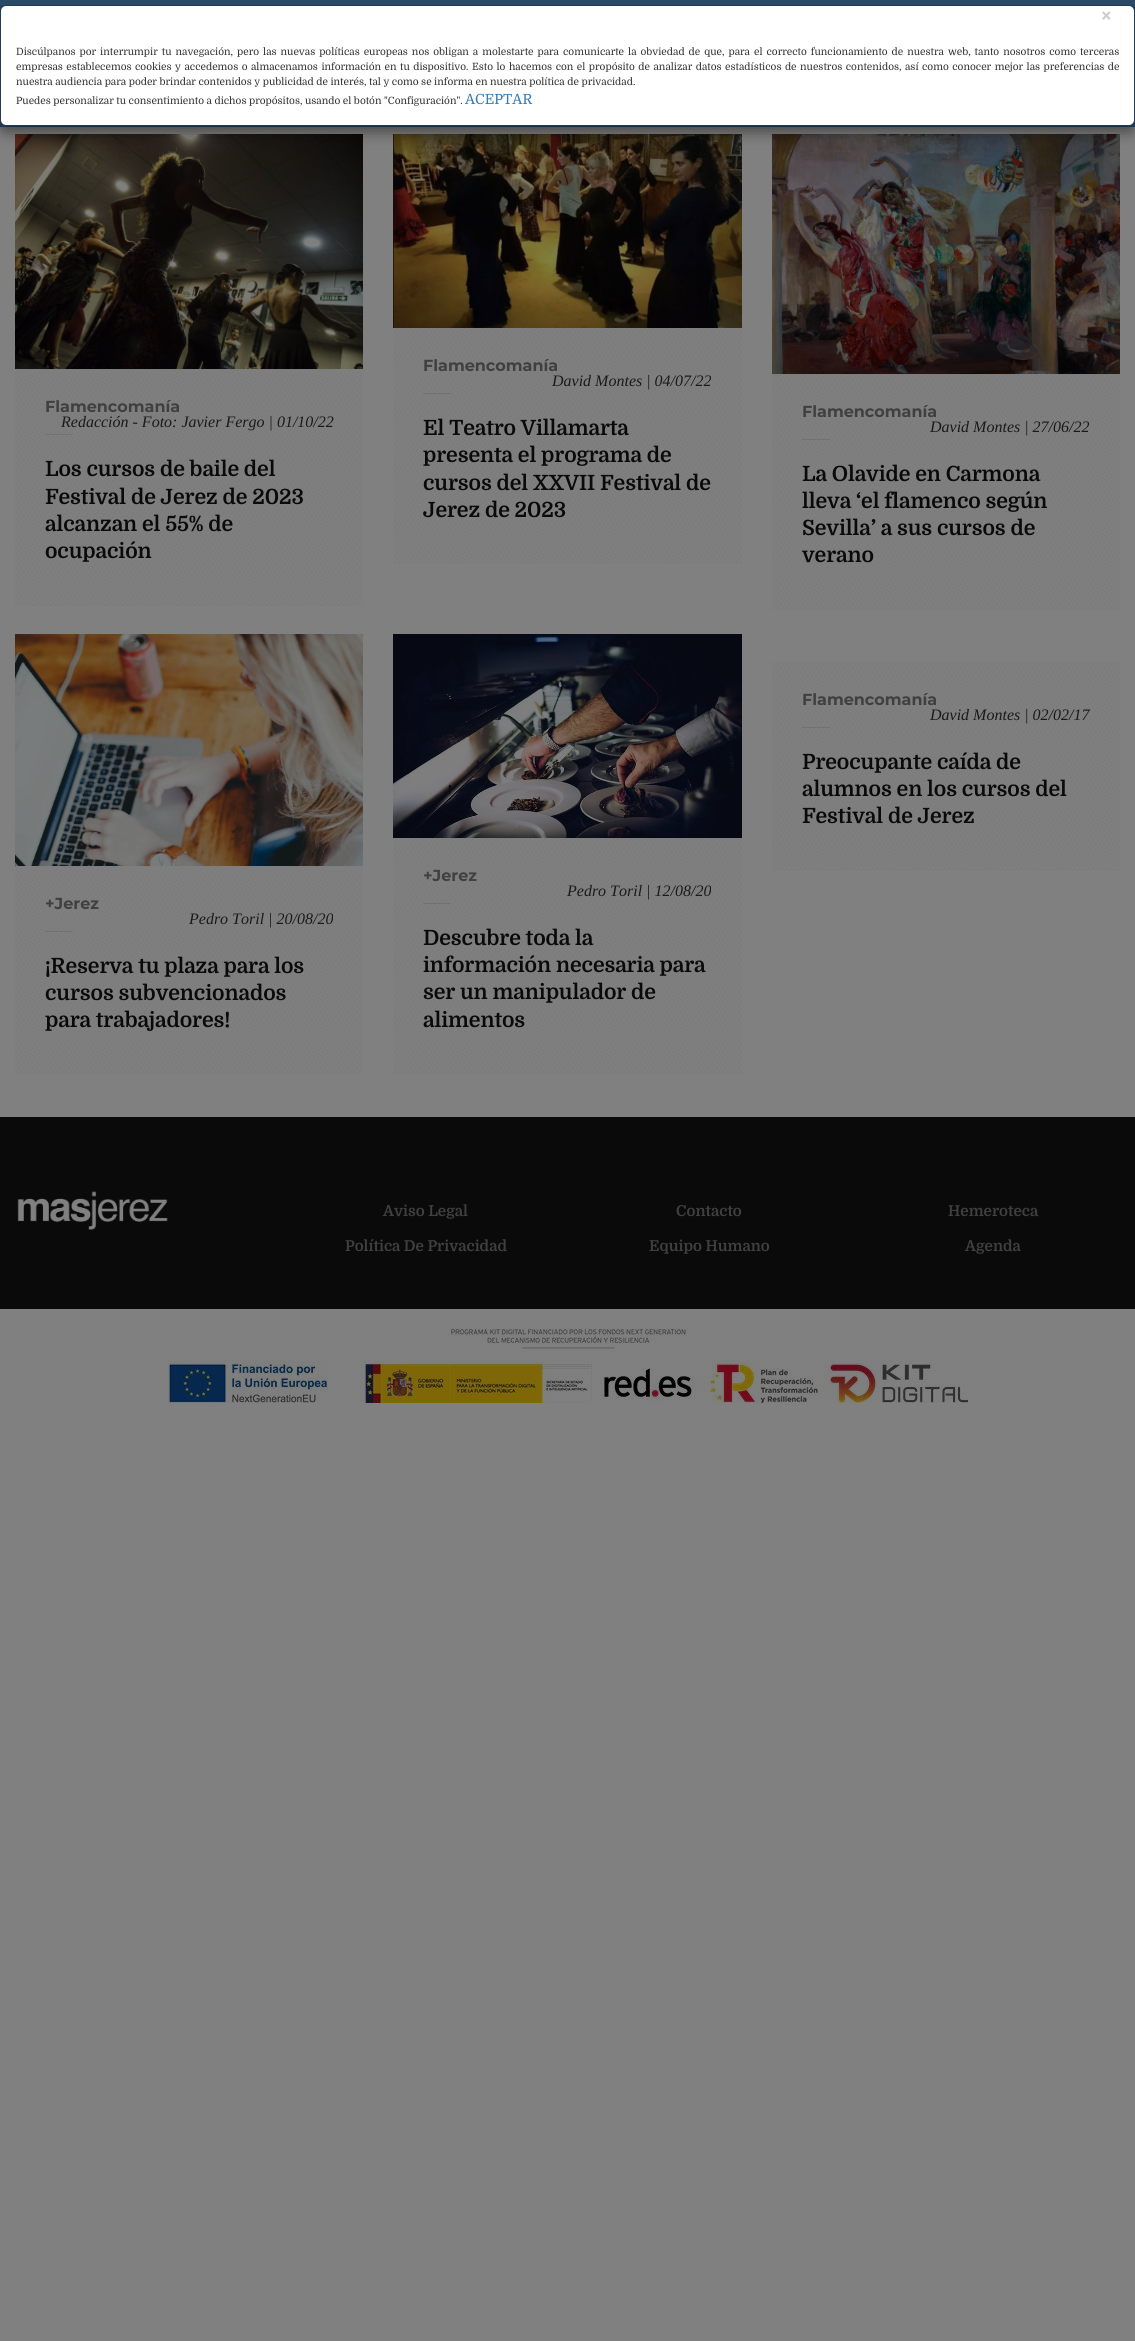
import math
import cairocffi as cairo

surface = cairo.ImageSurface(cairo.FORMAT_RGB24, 1135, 2341)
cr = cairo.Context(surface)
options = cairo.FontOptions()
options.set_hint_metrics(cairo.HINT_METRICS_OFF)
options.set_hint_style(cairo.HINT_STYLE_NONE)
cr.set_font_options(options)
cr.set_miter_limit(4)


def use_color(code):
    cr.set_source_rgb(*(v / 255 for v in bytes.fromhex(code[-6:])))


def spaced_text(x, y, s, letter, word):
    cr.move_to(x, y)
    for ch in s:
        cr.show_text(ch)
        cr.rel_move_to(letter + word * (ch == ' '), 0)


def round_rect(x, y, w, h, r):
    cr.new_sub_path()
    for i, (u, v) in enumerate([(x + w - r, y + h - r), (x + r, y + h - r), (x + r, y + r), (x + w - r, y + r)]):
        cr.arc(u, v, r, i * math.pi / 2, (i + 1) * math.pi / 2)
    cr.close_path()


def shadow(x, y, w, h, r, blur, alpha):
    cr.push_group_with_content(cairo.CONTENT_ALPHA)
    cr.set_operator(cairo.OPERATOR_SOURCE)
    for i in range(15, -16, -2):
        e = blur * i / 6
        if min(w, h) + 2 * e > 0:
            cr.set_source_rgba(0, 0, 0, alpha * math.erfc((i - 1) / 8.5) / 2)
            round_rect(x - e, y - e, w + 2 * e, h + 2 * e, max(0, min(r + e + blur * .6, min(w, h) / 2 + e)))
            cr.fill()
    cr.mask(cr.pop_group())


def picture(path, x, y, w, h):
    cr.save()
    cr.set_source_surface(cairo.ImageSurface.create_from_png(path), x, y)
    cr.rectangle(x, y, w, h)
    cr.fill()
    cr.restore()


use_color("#808080")
cr.paint()
use_color("#2a4967")
cr.rectangle(0, 0, 1135, 127)
cr.fill()
picture("img1.png", 15, 134, 348, 235)
picture("img3.png", 393, 134, 349, 194)
picture("img5.png", 772, 134, 348, 240)
cr.save()
cr.rectangle(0, 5, 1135, 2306)
cr.clip()
cr.set_fill_rule(cairo.FILL_RULE_EVEN_ODD)
cr.new_path()
cr.move_to(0, 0)
cr.line_to(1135, 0)
cr.line_to(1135, 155)
cr.line_to(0, 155)
cr.close_path()
cr.move_to(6, 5)
cr.line_to(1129, 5)
cr.curve_to(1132.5, 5, 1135, 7.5, 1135, 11)
cr.line_to(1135, 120)
cr.curve_to(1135, 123.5, 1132.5, 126, 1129, 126)
cr.line_to(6, 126)
cr.curve_to(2.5, 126, 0, 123.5, 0, 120)
cr.line_to(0, 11)
cr.curve_to(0, 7.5, 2.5, 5, 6, 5)
cr.close_path()
cr.clip()
use_color("#000000")
shadow(0, 10, 1135, 121, 6, 7.5, 0.5)
cr.restore()
use_color("#ffffff")
round_rect(1, 6, 1133, 119, 5)
cr.fill()
round_rect(0.5, 5.5, 1134, 120, 5.5)
cr.set_source_rgba(0, 0, 0, 0.2)
cr.set_line_width(1)
cr.stroke()
cr.select_font_face("Domine", cairo.FONT_SLANT_NORMAL, cairo.FONT_WEIGHT_BOLD)
cr.set_font_size(21)
use_color("#cccccc")
cr.move_to(1101, 23)
cr.show_text("×")
cr.select_font_face("Domine")
cr.set_font_size(10)
use_color("#333333")
spaced_text(16, 55, "Discúlpanos por interrumpir tu navegación, pero las nuevas políticas europeas nos obligan a molestarte para comunicarte la obviedad de que, para el correcto funcionamiento de nuestra web, tanto nosotros como terceras", 0, 1.45)
spaced_text(16, 70, "empresas establecemos cookies y accedemos o almacenamos información en tu dispositivo. Esto lo hacemos con el propósito de analizar datos estadísticos de nuestros contenidos, así como conocer mejor las preferencias de", 0, 0.95)
cr.move_to(16, 85)
cr.show_text("nuestra audiencia para poder brindar contenidos y publicidad de interés, tal y como se informa en nuestra política de privacidad.")
cr.move_to(16, 104)
cr.show_text("Puedes personalizar tu consentimiento a dichos propósitos, usando el botón \"Configuración\".")
cr.set_font_size(14)
use_color("#337ab7")
cr.move_to(465, 104)
cr.show_text("ACEPTAR")
picture("img2.png", 15, 369, 348, 237)
cr.select_font_face("Montserrat", cairo.FONT_SLANT_NORMAL, cairo.FONT_WEIGHT_BOLD)
cr.set_font_size(16)
use_color("#404040")
cr.move_to(45, 412)
cr.show_text("Flamencomanía")
cr.set_source_rgba(0, 0, 0, 0.1)
cr.rectangle(45, 434, 28, 1)
cr.fill()
cr.select_font_face("Liberation Serif", cairo.FONT_SLANT_ITALIC)
use_color("#1a1a1a")
cr.move_to(61, 427)
cr.show_text("Redacción - Foto: Javier Fergo | 01/10/22")
cr.select_font_face("Domine", cairo.FONT_SLANT_NORMAL, cairo.FONT_WEIGHT_BOLD)
cr.set_font_size(21)
use_color("#0a0a0a")
spaced_text(45, 476, "Los cursos de baile del", -0.1, 0)
spaced_text(45, 504, "Festival de Jerez de 2023", -0.1, 0)
spaced_text(45, 531, "alcanzan el 55% de", -0.1, 0)
spaced_text(45, 558, "ocupación", -0.1, 0)
picture("img4.png", 393, 328, 349, 236)
cr.select_font_face("Montserrat", cairo.FONT_SLANT_NORMAL, cairo.FONT_WEIGHT_BOLD)
cr.set_font_size(16)
use_color("#404040")
cr.move_to(423, 371)
cr.show_text("Flamencomanía")
cr.set_source_rgba(0, 0, 0, 0.1)
cr.rectangle(423, 393, 28, 1)
cr.fill()
cr.select_font_face("Liberation Serif", cairo.FONT_SLANT_ITALIC)
use_color("#1a1a1a")
cr.move_to(552, 386)
cr.show_text("David Montes | 04/07/22")
cr.select_font_face("Domine", cairo.FONT_SLANT_NORMAL, cairo.FONT_WEIGHT_BOLD)
cr.set_font_size(21)
use_color("#0a0a0a")
spaced_text(423, 435, "El Teatro Villamarta", -0.1, 0)
spaced_text(423, 462, "presenta el programa de", -0.1, 0)
spaced_text(423, 490, "cursos del XXVII Festival de", -0.1, 0)
spaced_text(423, 517, "Jerez de 2023", -0.1, 0)
picture("img6.png", 772, 374, 348, 236)
cr.select_font_face("Montserrat", cairo.FONT_SLANT_NORMAL, cairo.FONT_WEIGHT_BOLD)
cr.set_font_size(16)
use_color("#404040")
cr.move_to(802, 417)
cr.show_text("Flamencomanía")
cr.set_source_rgba(0, 0, 0, 0.1)
cr.rectangle(802, 439, 28, 1)
cr.fill()
cr.select_font_face("Liberation Serif", cairo.FONT_SLANT_ITALIC)
use_color("#1a1a1a")
cr.move_to(930, 432)
cr.show_text("David Montes | 27/06/22")
cr.select_font_face("Domine", cairo.FONT_SLANT_NORMAL, cairo.FONT_WEIGHT_BOLD)
cr.set_font_size(21)
use_color("#0a0a0a")
spaced_text(802, 481, "La Olavide en Carmona", -0.1, 0)
spaced_text(802, 508, "lleva ‘el flamenco según", -0.1, 0)
spaced_text(802, 535, "Sevilla’ a sus cursos de", -0.1, 0)
spaced_text(802, 562, "verano", -0.1, 0)
picture("img7.png", 772, 662, 348, 209)
cr.select_font_face("Montserrat", cairo.FONT_SLANT_NORMAL, cairo.FONT_WEIGHT_BOLD)
cr.set_font_size(16)
use_color("#404040")
cr.move_to(802, 705)
cr.show_text("Flamencomanía")
cr.set_source_rgba(0, 0, 0, 0.1)
cr.rectangle(802, 727, 28, 1)
cr.fill()
cr.select_font_face("Liberation Serif", cairo.FONT_SLANT_ITALIC)
use_color("#1a1a1a")
cr.move_to(930, 720)
cr.show_text("David Montes | 02/02/17")
cr.select_font_face("Domine", cairo.FONT_SLANT_NORMAL, cairo.FONT_WEIGHT_BOLD)
cr.set_font_size(21)
use_color("#0a0a0a")
spaced_text(802, 769, "Preocupante caída de", -0.1, 0)
spaced_text(802, 796, "alumnos en los cursos del", -0.1, 0)
spaced_text(802, 823, "Festival de Jerez", -0.1, 0)
picture("img8.png", 15, 634, 348, 232)
picture("img9.png", 15, 866, 348, 208)
cr.select_font_face("Montserrat", cairo.FONT_SLANT_NORMAL, cairo.FONT_WEIGHT_BOLD)
cr.set_font_size(16)
use_color("#404040")
cr.move_to(45, 909)
cr.show_text("+Jerez")
cr.set_source_rgba(0, 0, 0, 0.1)
cr.rectangle(45, 931, 28, 1)
cr.fill()
cr.select_font_face("Liberation Serif", cairo.FONT_SLANT_ITALIC)
use_color("#1a1a1a")
cr.move_to(189, 924)
cr.show_text("Pedro Toril | 20/08/20")
cr.select_font_face("Domine", cairo.FONT_SLANT_NORMAL, cairo.FONT_WEIGHT_BOLD)
cr.set_font_size(21)
use_color("#0a0a0a")
spaced_text(45, 973, "¡Reserva tu plaza para los", -0.1, 0)
spaced_text(45, 1000, "cursos subvencionados", -0.1, 0)
spaced_text(45, 1027, "para trabajadores!", -0.1, 0)
picture("img10.png", 393, 634, 349, 204)
picture("img4.png", 393, 838, 349, 236)
cr.select_font_face("Montserrat", cairo.FONT_SLANT_NORMAL, cairo.FONT_WEIGHT_BOLD)
cr.set_font_size(16)
use_color("#404040")
cr.move_to(423, 881)
cr.show_text("+Jerez")
cr.set_source_rgba(0, 0, 0, 0.1)
cr.rectangle(423, 903, 28, 1)
cr.fill()
cr.select_font_face("Liberation Serif", cairo.FONT_SLANT_ITALIC)
use_color("#1a1a1a")
cr.move_to(567, 896)
cr.show_text("Pedro Toril | 12/08/20")
cr.select_font_face("Domine", cairo.FONT_SLANT_NORMAL, cairo.FONT_WEIGHT_BOLD)
cr.set_font_size(21)
use_color("#0a0a0a")
spaced_text(423, 945, "Descubre toda la", -0.1, 0)
spaced_text(423, 972, "información necesaria para", -0.1, 0)
spaced_text(423, 999, "ser un manipulador de", -0.1, 0)
spaced_text(423, 1027, "alimentos", -0.1, 0)
cr.rectangle(0, 1117, 1135, 192)
cr.fill()
picture("img11.png", 17, 1191, 151, 39)
cr.set_font_size(15)
use_color("#404040")
cr.move_to(383, 1216)
cr.show_text("Aviso Legal")
cr.move_to(345, 1251)
cr.show_text("Política De Privacidad")
cr.move_to(676, 1216)
cr.show_text("Contacto")
cr.move_to(649, 1251)
cr.show_text("Equipo Humano")
cr.move_to(948, 1216)
cr.show_text("Hemeroteca")
cr.move_to(965, 1251)
cr.show_text("Agenda")
picture("img12.png", 168, 1328, 800, 75)
surface.write_to_png("result.png")
